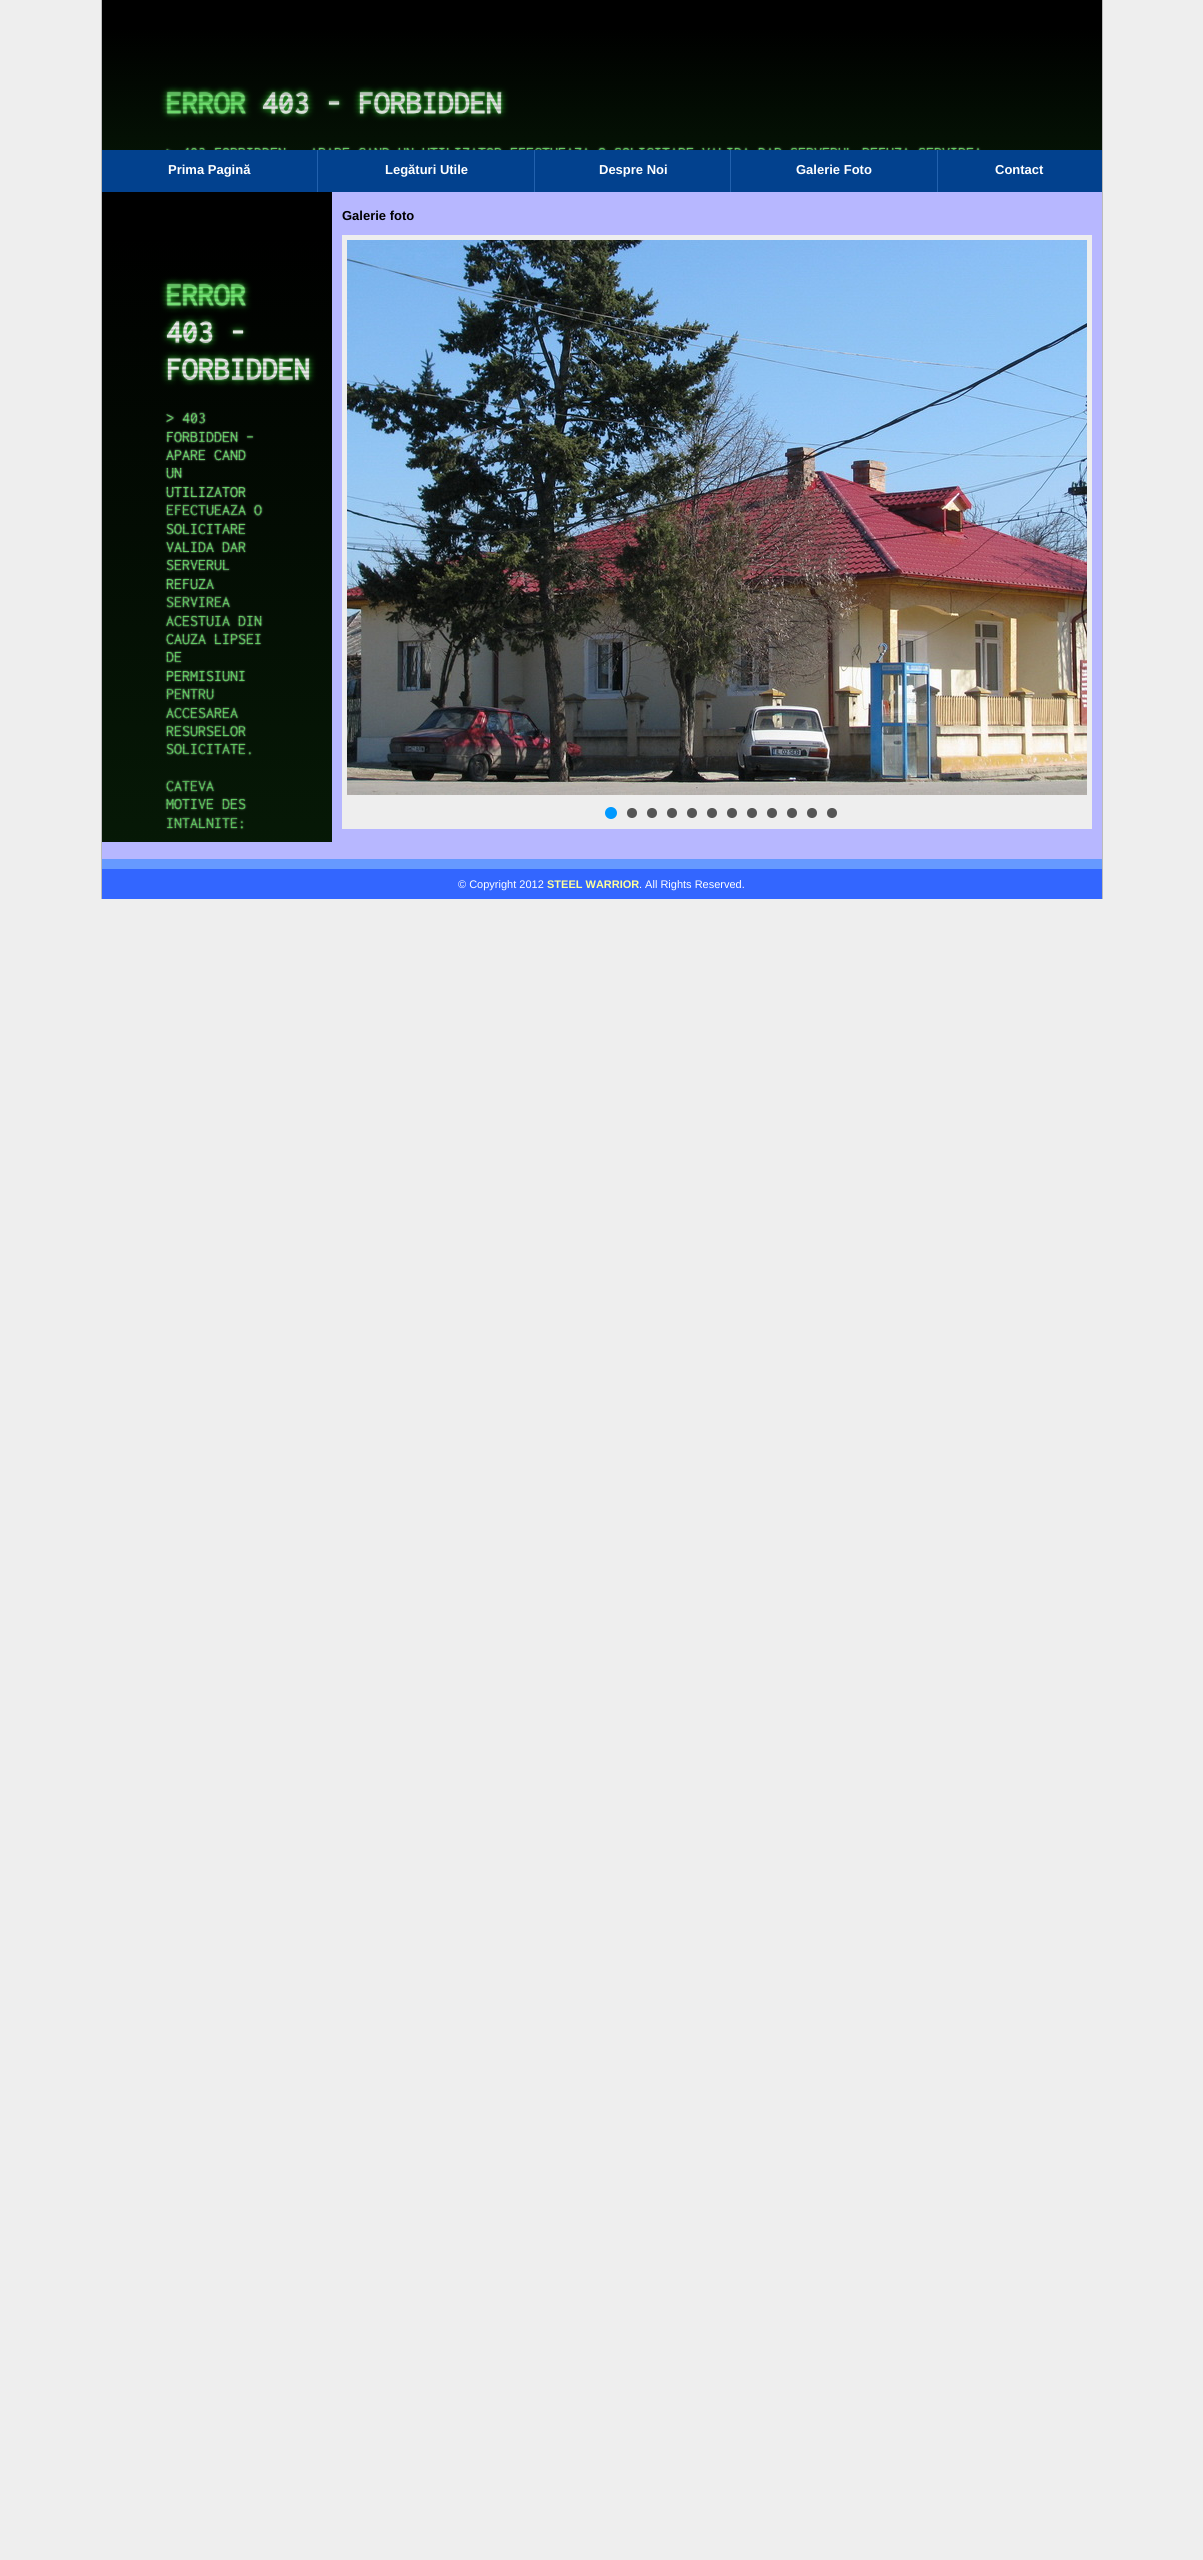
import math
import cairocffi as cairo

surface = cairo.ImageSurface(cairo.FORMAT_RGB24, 1203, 2560)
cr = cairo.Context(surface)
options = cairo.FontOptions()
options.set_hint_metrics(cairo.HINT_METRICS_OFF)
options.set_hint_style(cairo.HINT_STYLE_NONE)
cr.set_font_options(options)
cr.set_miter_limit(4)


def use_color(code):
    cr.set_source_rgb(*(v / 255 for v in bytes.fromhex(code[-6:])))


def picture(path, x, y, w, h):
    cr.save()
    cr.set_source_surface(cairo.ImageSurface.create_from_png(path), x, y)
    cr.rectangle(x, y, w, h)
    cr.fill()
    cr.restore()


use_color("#eeeeee")
cr.paint()
use_color("#b7b7ff")
cr.rectangle(102, 192, 1000, 667)
cr.fill()
use_color("#bbbbbb")
cr.rectangle(1102, 0, 1, 899)
cr.fill()
cr.rectangle(101, 0, 1, 899)
cr.fill()
picture("img1.png", 102, 0, 1000, 150)
use_color("#02418e")
cr.rectangle(102, 150, 1000, 42)
cr.fill()
use_color("#2261ae")
cr.rectangle(317, 150, 1, 42)
cr.fill()
cr.select_font_face("Liberation Sans", cairo.FONT_SLANT_NORMAL, cairo.FONT_WEIGHT_BOLD)
cr.set_font_size(13)
use_color("#ffffff")
cr.move_to(168, 174)
cr.show_text("Prima Pagină")
use_color("#2261ae")
cr.rectangle(534, 150, 1, 42)
cr.fill()
use_color("#ffffff")
cr.move_to(385, 174)
cr.show_text("Legături Utile")
use_color("#2261ae")
cr.rectangle(730, 150, 1, 42)
cr.fill()
use_color("#ffffff")
cr.move_to(599, 174)
cr.show_text("Despre Noi")
use_color("#2261ae")
cr.rectangle(937, 150, 1, 42)
cr.fill()
use_color("#ffffff")
cr.move_to(796, 174)
cr.show_text("Galerie Foto")
cr.move_to(995, 174)
cr.show_text("Contact")
picture("img2.png", 102, 192, 230, 650)
use_color("#000000")
cr.move_to(342, 220)
cr.show_text("Galerie foto")
use_color("#eeeeee")
cr.rectangle(342, 235, 750, 594)
cr.fill()
picture("img3.png", 347, 240, 740, 555)
use_color("#0099ff")
cr.arc(611, 813, 6, 0, 2 * math.pi)
cr.fill()
use_color("#555555")
cr.arc(632, 813, 5, 0, 2 * math.pi)
cr.fill()
cr.arc(652, 813, 5, 0, 2 * math.pi)
cr.fill()
cr.arc(672, 813, 5, 0, 2 * math.pi)
cr.fill()
cr.arc(692, 813, 5, 0, 2 * math.pi)
cr.fill()
cr.arc(712, 813, 5, 0, 2 * math.pi)
cr.fill()
cr.arc(732, 813, 5, 0, 2 * math.pi)
cr.fill()
cr.arc(752, 813, 5, 0, 2 * math.pi)
cr.fill()
cr.arc(772, 813, 5, 0, 2 * math.pi)
cr.fill()
cr.arc(792, 813, 5, 0, 2 * math.pi)
cr.fill()
cr.arc(812, 813, 5, 0, 2 * math.pi)
cr.fill()
cr.arc(832, 813, 5, 0, 2 * math.pi)
cr.fill()
use_color("#3366ff")
cr.rectangle(102, 869, 1000, 30)
cr.fill()
use_color("#6699ff")
cr.rectangle(102, 859, 1000, 10)
cr.fill()
cr.select_font_face("Liberation Sans")
cr.set_font_size(11)
use_color("#ffffff")
cr.move_to(458, 888)
cr.show_text("© Copyright 2012")
cr.select_font_face("Liberation Sans", cairo.FONT_SLANT_NORMAL, cairo.FONT_WEIGHT_BOLD)
use_color("#ffff99")
cr.move_to(547, 888)
cr.show_text("STEEL WARRIOR")
cr.select_font_face("Liberation Sans")
use_color("#ffffff")
cr.move_to(639, 888)
cr.show_text(". All Rights Reserved.")
surface.write_to_png("result.png")
